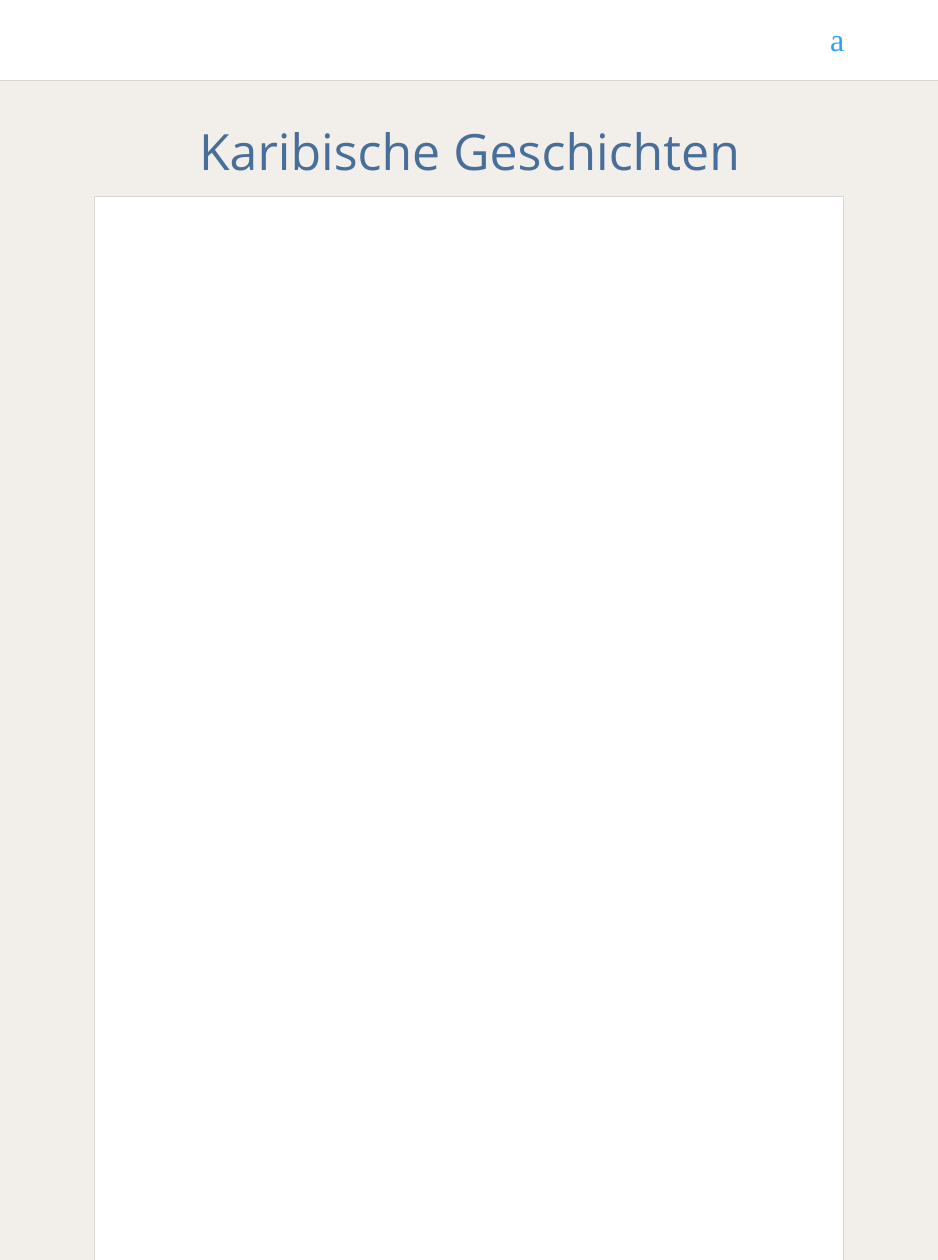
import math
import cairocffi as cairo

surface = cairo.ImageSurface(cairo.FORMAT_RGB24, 938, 1260)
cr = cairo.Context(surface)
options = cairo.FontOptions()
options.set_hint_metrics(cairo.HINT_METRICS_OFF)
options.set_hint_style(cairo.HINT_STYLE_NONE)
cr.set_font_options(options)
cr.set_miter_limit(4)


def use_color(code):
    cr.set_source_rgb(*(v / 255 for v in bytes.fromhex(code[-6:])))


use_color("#ffffff")
cr.paint()
use_color("#dad6d2")
cr.rectangle(0, 80, 938, 1)
cr.fill()
cr.select_font_face("Liberation Serif")
cr.set_font_size(32)
use_color("#2ea3f2")
cr.move_to(830, 51)
cr.show_text("a")
use_color("#f2eee9")
cr.rectangle(0, 81, 938, 1179)
cr.fill()
cr.select_font_face("Open Sans")
cr.set_font_size(50)
use_color("#486e9a")
cr.move_to(199, 170)
cr.show_text("Karibische Geschichten")
use_color("#ffffff")
cr.rectangle(95, 197, 748, 1063)
cr.fill()
use_color("#d6d6d6")
cr.new_path()
cr.move_to(95, 196)
cr.line_to(94, 196)
cr.line_to(95, 197)
cr.line_to(843, 197)
cr.line_to(844, 196)
cr.line_to(843, 196)
cr.close_path()
cr.fill()
cr.new_path()
cr.move_to(844, 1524)
cr.line_to(844, 197)
cr.line_to(844, 196)
cr.line_to(843, 197)
cr.line_to(843, 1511)
cr.close_path()
cr.fill()
cr.new_path()
cr.move_to(95, 197)
cr.line_to(94, 196)
cr.line_to(94, 197)
cr.line_to(94, 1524)
cr.line_to(95, 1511)
cr.close_path()
cr.fill()
surface.write_to_png("result.png")
